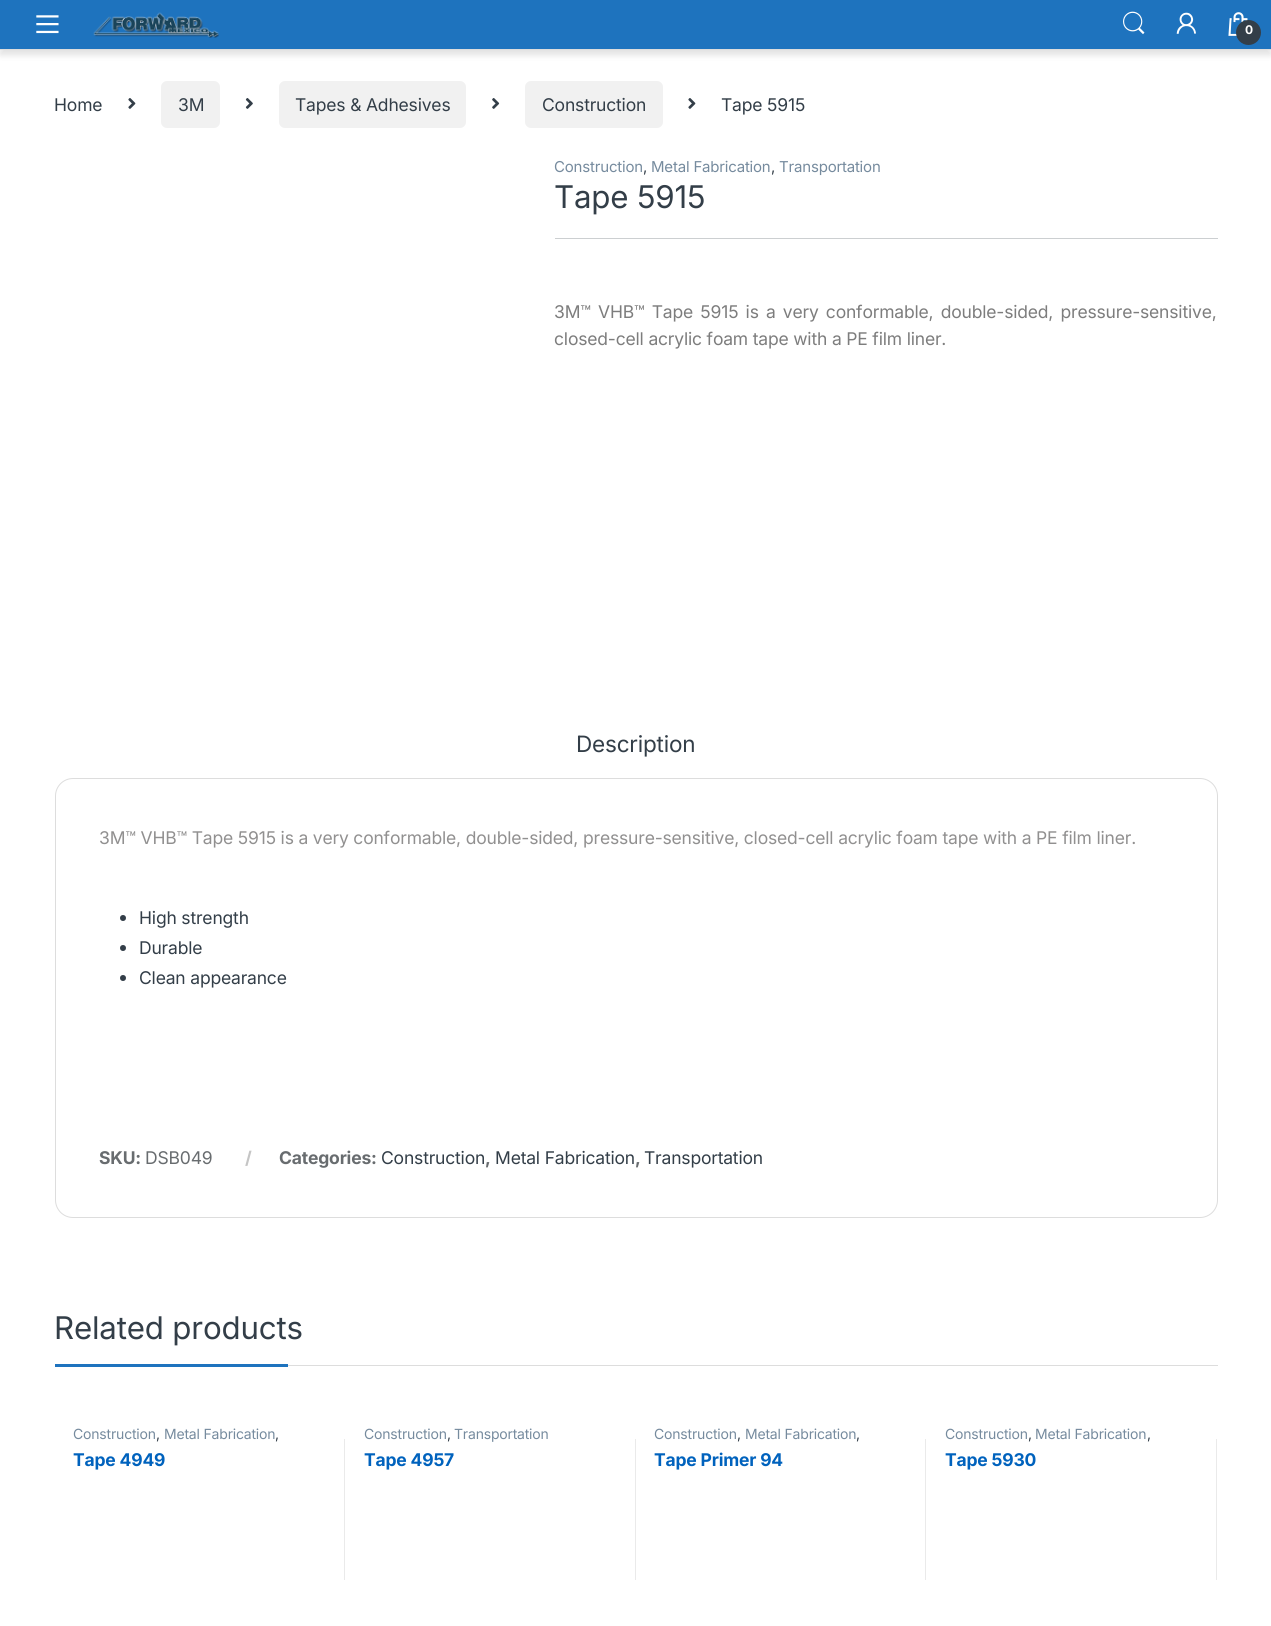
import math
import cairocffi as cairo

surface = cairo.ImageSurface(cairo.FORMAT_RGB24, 1271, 1626)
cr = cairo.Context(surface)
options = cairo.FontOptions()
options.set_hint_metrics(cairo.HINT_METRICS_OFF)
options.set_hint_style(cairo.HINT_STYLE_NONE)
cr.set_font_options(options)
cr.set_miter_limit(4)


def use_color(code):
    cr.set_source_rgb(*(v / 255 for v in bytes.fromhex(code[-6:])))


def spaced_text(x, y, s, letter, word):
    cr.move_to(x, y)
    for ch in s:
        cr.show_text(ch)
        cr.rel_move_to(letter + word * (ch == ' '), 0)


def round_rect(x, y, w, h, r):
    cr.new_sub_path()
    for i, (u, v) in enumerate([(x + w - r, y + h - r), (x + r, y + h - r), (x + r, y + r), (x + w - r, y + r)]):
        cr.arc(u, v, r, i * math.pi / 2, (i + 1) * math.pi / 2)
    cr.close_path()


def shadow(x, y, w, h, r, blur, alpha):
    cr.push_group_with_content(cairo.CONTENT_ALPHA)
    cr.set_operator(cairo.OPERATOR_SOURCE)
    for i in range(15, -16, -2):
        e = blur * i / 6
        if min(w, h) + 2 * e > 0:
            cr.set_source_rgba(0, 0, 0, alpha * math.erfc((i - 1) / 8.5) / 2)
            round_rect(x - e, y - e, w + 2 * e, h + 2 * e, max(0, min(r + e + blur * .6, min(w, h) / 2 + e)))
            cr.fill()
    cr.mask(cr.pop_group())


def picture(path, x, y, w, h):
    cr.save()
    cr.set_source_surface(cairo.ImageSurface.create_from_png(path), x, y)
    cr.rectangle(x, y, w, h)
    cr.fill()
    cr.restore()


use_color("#ffffff")
cr.paint()
use_color("#000000")
shadow(0, 5, 1271, 50, 0, 3.5, 0.12)
use_color("#dddddd")
cr.rectangle(0, 49, 1271, 1)
cr.fill()
use_color("#1e73be")
cr.rectangle(0, 0, 1271, 49)
cr.fill()
picture("img1.png", 36, 15, 23, 19)
picture("img2.png", 93, 12, 126, 26)
picture("img3.png", 1123, 11, 22, 24)
picture("img4.png", 1176, 12, 20, 22)
picture("img5.png", 1228, 12, 20, 24)
use_color("#333e48")
cr.arc(1248.5, 32.5, 12.5, 0, 2 * math.pi)
cr.fill()
cr.select_font_face("Inter", cairo.FONT_SLANT_NORMAL, cairo.FONT_WEIGHT_BOLD)
cr.set_font_size(12)
use_color("#ffffff")
spaced_text(1245, 34, "0", -0.18, 0)
cr.select_font_face("Inter")
cr.set_font_size(17.5)
use_color("#333e48")
spaced_text(54, 111, "Home", -0.18, 0)
picture("img6.png", 128, 98, 8, 11)
use_color("#f1f1f1")
round_rect(161, 81, 59, 47, 6)
cr.fill()
use_color("#333e48")
spaced_text(178, 111, "3M", -0.18, 0)
picture("img7.png", 245, 98, 8, 11)
use_color("#f1f1f1")
round_rect(279, 81, 187, 47, 6)
cr.fill()
use_color("#333e48")
spaced_text(295, 111, "Tapes & Adhesives", -0.18, 0)
picture("img8.png", 492, 98, 8, 11)
use_color("#f1f1f1")
round_rect(525, 81, 138, 47, 6)
cr.fill()
use_color("#333e48")
spaced_text(542, 111, "Construction", -0.18, 0)
picture("img6.png", 688, 98, 8, 11)
spaced_text(721, 111, "Tape 5915", -0.18, 0)
cr.set_font_size(15)
use_color("#768b9e")
spaced_text(554, 172, "Construction", -0.18, 0)
use_color("#333e48")
spaced_text(643, 172, ",", -0.18, 0)
use_color("#768b9e")
spaced_text(651, 172, "Metal Fabrication", -0.18, 0)
use_color("#333e48")
spaced_text(771, 172, ",", -0.18, 0)
use_color("#768b9e")
spaced_text(779, 172, "Transportation", -0.18, 0)
cr.set_font_size(31.25)
use_color("#333e48")
spaced_text(554, 208, "Tape 5915", -0.18, 0)
use_color("#cccfd1")
cr.rectangle(555, 238, 663, 1)
cr.fill()
cr.set_font_size(17.5)
use_color("#7d7d7d")
spaced_text(554, 318, "3M™ VHB™ Tape 5915 is a very conformable, double-sided, pressure-sensitive,", -0.18, 2.5)
spaced_text(554, 345, "closed-cell acrylic foam tape with a PE film liner.", -0.18, 0)
cr.set_font_size(22.5)
use_color("#333e48")
spaced_text(576, 752, "Description", -0.18, 0)
round_rect(55.5, 778.5, 1162, 439, 17.5)
use_color("#dddddd")
cr.set_line_width(1)
cr.stroke()
cr.set_font_size(17.5)
use_color("#919090")
spaced_text(99, 844, "3M™ VHB™ Tape 5915 is a very conformable, double-sided, pressure-sensitive, closed-cell acrylic foam tape with a PE film liner.", -0.18, 0)
use_color("#333e48")
cr.new_path()
cr.arc(123, 918, 3, 0, 2 * math.pi)
cr.fill()
spaced_text(139, 924, "High strength", -0.18, 0)
cr.new_path()
cr.arc(123, 948, 3, 0, 2 * math.pi)
cr.fill()
spaced_text(139, 954, "Durable", -0.18, 0)
cr.new_path()
cr.arc(123, 978, 3, 0, 2 * math.pi)
cr.fill()
spaced_text(139, 984, "Clean appearance", -0.18, 0)
cr.select_font_face("Inter", cairo.FONT_SLANT_NORMAL, cairo.FONT_WEIGHT_BOLD)
use_color("#686c6f")
spaced_text(99, 1164, "SKU:", -0.18, 0)
cr.select_font_face("Inter")
spaced_text(145, 1164, "DSB049", -0.18, 0)
cr.select_font_face("Inter", cairo.FONT_SLANT_NORMAL, cairo.FONT_WEIGHT_BOLD)
use_color("#c5c5c5")
spaced_text(245, 1164, "/", -0.18, 0)
use_color("#686c6f")
spaced_text(279, 1164, "Categories:", -0.18, 0)
cr.select_font_face("Inter")
use_color("#333e48")
spaced_text(381, 1164, "Construction", -0.18, 0)
cr.select_font_face("Inter", cairo.FONT_SLANT_NORMAL, cairo.FONT_WEIGHT_BOLD)
use_color("#686c6f")
spaced_text(485, 1164, ",", -0.18, 0)
cr.select_font_face("Inter")
use_color("#333e48")
spaced_text(495, 1164, "Metal Fabrication", -0.18, 0)
cr.select_font_face("Inter", cairo.FONT_SLANT_NORMAL, cairo.FONT_WEIGHT_BOLD)
use_color("#686c6f")
spaced_text(635, 1164, ",", -0.18, 0)
cr.select_font_face("Inter")
use_color("#333e48")
spaced_text(644, 1164, "Transportation", -0.18, 0)
use_color("#dddddd")
cr.rectangle(288, 1365, 930, 1)
cr.fill()
cr.set_font_size(31.25)
use_color("#333e48")
spaced_text(54, 1339, "Related products", -0.18, 0)
use_color("#1e73be")
cr.rectangle(55, 1364, 233, 3)
cr.fill()
cr.set_font_size(14)
use_color("#768b9e")
spaced_text(73, 1439, "Construction", -0.18, 0)
use_color("#333e48")
spaced_text(156, 1439, ",", -0.18, 0)
use_color("#768b9e")
spaced_text(164, 1439, "Metal Fabrication", -0.18, 0)
use_color("#333e48")
spaced_text(275, 1439, ",", -0.18, 0)
cr.select_font_face("Inter", cairo.FONT_SLANT_NORMAL, cairo.FONT_WEIGHT_BOLD)
cr.set_font_size(17.5)
use_color("#0062bd")
spaced_text(73, 1466, "Tape 4949", -0.18, 0)
use_color("#eaeaea")
cr.rectangle(344, 1439, 1, 141)
cr.fill()
cr.select_font_face("Inter")
cr.set_font_size(14)
use_color("#768b9e")
spaced_text(364, 1439, "Construction", -0.18, 0)
use_color("#333e48")
spaced_text(447, 1439, ",", -0.18, 0)
use_color("#768b9e")
spaced_text(454, 1439, "Transportation", -0.18, 0)
cr.select_font_face("Inter", cairo.FONT_SLANT_NORMAL, cairo.FONT_WEIGHT_BOLD)
cr.set_font_size(17.5)
use_color("#0062bd")
spaced_text(364, 1466, "Tape 4957", -0.18, 0)
use_color("#eaeaea")
cr.rectangle(635, 1439, 1, 141)
cr.fill()
cr.select_font_face("Inter")
cr.set_font_size(14)
use_color("#768b9e")
spaced_text(654, 1439, "Construction", -0.18, 0)
use_color("#333e48")
spaced_text(737, 1439, ",", -0.18, 0)
use_color("#768b9e")
spaced_text(745, 1439, "Metal Fabrication", -0.18, 0)
use_color("#333e48")
spaced_text(856, 1439, ",", -0.18, 0)
cr.select_font_face("Inter", cairo.FONT_SLANT_NORMAL, cairo.FONT_WEIGHT_BOLD)
cr.set_font_size(17.5)
use_color("#0062bd")
spaced_text(654, 1466, "Tape Primer 94", -0.18, 0)
use_color("#eaeaea")
cr.rectangle(925, 1439, 1, 141)
cr.fill()
cr.select_font_face("Inter")
cr.set_font_size(14)
use_color("#768b9e")
spaced_text(945, 1439, "Construction", -0.18, 0)
use_color("#333e48")
spaced_text(1028, 1439, ",", -0.18, 0)
use_color("#768b9e")
spaced_text(1035, 1439, "Metal Fabrication", -0.18, 0)
use_color("#333e48")
spaced_text(1147, 1439, ",", -0.18, 0)
cr.select_font_face("Inter", cairo.FONT_SLANT_NORMAL, cairo.FONT_WEIGHT_BOLD)
cr.set_font_size(17.5)
use_color("#0062bd")
spaced_text(945, 1466, "Tape 5930", -0.18, 0)
use_color("#eaeaea")
cr.rectangle(1216, 1439, 1, 141)
cr.fill()
surface.write_to_png("result.png")
